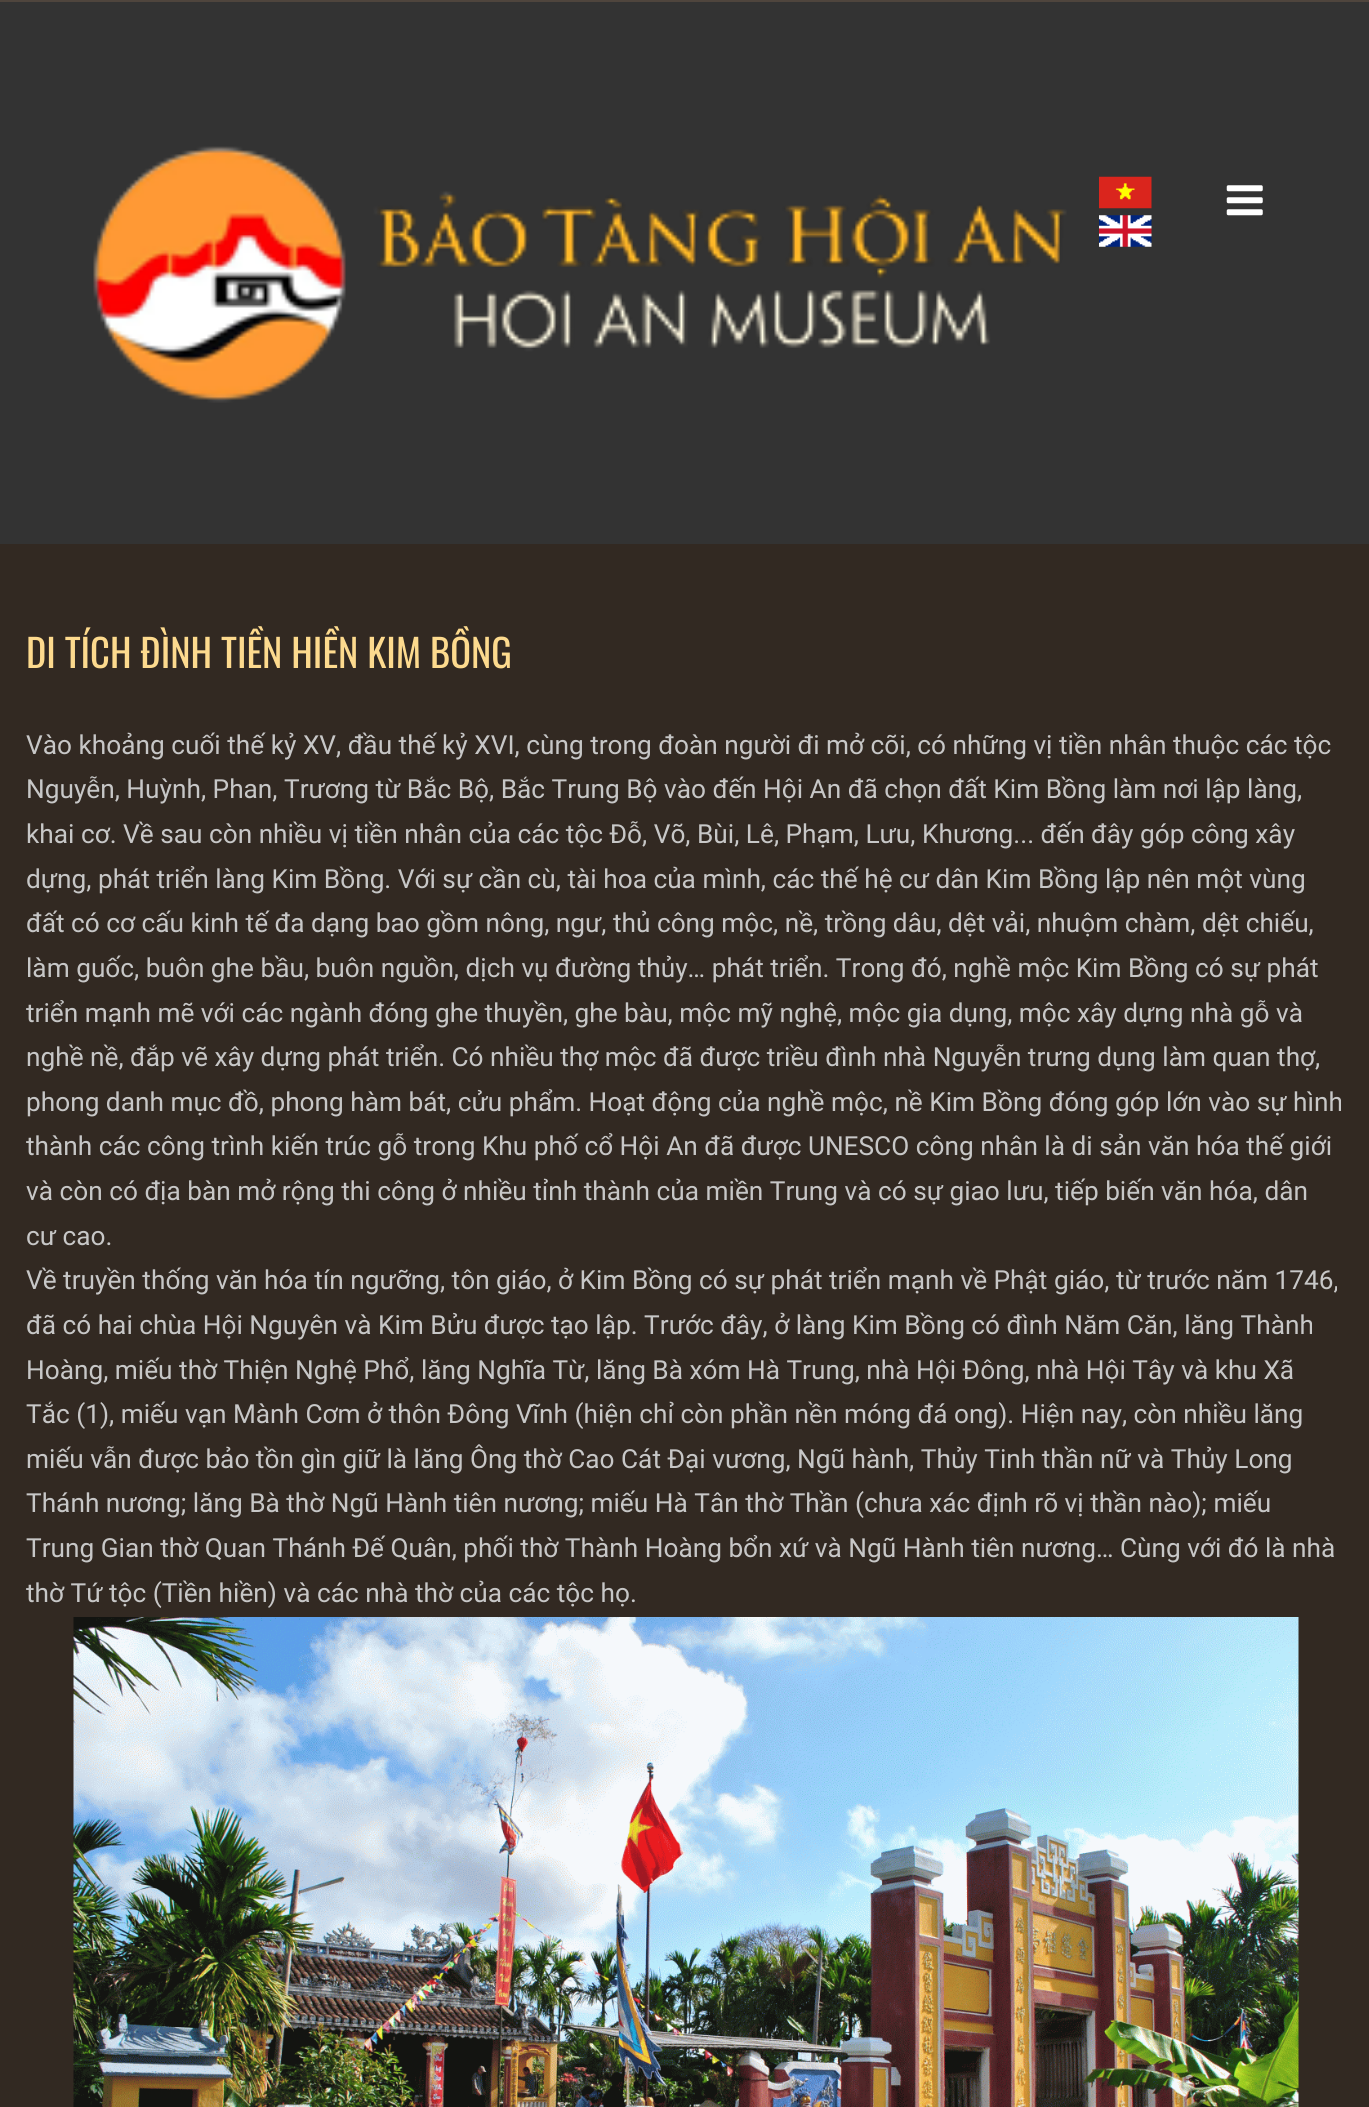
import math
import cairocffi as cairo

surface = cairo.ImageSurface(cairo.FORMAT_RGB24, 1369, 2107)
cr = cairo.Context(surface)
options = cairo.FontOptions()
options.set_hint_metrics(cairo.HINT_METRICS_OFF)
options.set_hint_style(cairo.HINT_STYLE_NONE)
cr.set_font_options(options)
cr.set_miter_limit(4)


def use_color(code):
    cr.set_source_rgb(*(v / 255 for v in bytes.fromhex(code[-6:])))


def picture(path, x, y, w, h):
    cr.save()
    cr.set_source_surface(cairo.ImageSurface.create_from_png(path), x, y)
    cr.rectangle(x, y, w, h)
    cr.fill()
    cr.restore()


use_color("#322922")
cr.paint()
use_color("#4f453d")
cr.rectangle(0, 0, 1369, 2)
cr.fill()
use_color("#333333")
cr.rectangle(0, 2, 1369, 542)
cr.fill()
picture("img1.png", 93, 146, 974, 257)
picture("img2.png", 1226, 185, 37, 31)
picture("img3.png", 1099, 176, 53, 33)
picture("img4.png", 1099, 215, 53, 32)
cr.select_font_face("Oswald")
cr.set_font_size(38.5)
use_color("#fdda8e")
cr.move_to(26, 668)
cr.show_text("DI TÍCH ĐÌNH TIỀN HIỀN KIM BỒNG")
cr.select_font_face("Roboto")
cr.set_font_size(26.25)
use_color("#c7c7c7")
cr.move_to(26, 754)
cr.show_text("Vào khoảng cuối thế kỷ XV, đầu thế kỷ XVI, cùng trong đoàn người đi mở cõi, có những vị tiền nhân thuộc các tộc")
cr.move_to(26, 798)
cr.show_text("Nguyễn, Huỳnh, Phan, Trương từ Bắc Bộ, Bắc Trung Bộ vào đến Hội An đã chọn đất Kim Bồng làm nơi lập làng,")
cr.move_to(26, 843)
cr.show_text("khai cơ. Về sau còn nhiều vị tiền nhân của các tộc Đỗ, Võ, Bùi, Lê, Phạm, Lưu, Khương... đến đây góp công xây")
cr.move_to(26, 888)
cr.show_text("dựng, phát triển làng Kim Bồng. Với sự cần cù, tài hoa của mình, các thế hệ cư dân Kim Bồng lập nên một vùng")
cr.move_to(26, 932)
cr.show_text("đất có cơ cấu kinh tế đa dạng bao gồm nông, ngư, thủ công mộc, nề, trồng dâu, dệt vải, nhuộm chàm, dệt chiếu,")
cr.move_to(26, 977)
cr.show_text("làm guốc, buôn ghe bầu, buôn nguồn, dịch vụ đường thủy… phát triển. Trong đó, nghề mộc Kim Bồng có sự phát")
cr.move_to(26, 1022)
cr.show_text("triển mạnh mẽ với các ngành đóng ghe thuyền, ghe bàu, mộc mỹ nghệ, mộc gia dụng, mộc xây dựng nhà gỗ và")
cr.move_to(26, 1066)
cr.show_text("nghề nề, đắp vẽ xây dựng phát triển. Có nhiều thợ mộc đã được triều đình nhà Nguyễn trưng dụng làm quan thợ,")
cr.move_to(26, 1111)
cr.show_text("phong danh mục đồ, phong hàm bát, cửu phẩm. Hoạt động của nghề mộc, nề Kim Bồng đóng góp lớn vào sự hình")
cr.move_to(26, 1155)
cr.show_text("thành các công trình kiến trúc gỗ trong Khu phố cổ Hội An đã được UNESCO công nhân là di sản văn hóa thế giới")
cr.move_to(26, 1200)
cr.show_text("và còn có địa bàn mở rộng thi công ở nhiều tỉnh thành của miền Trung và có sự giao lưu, tiếp biến văn hóa, dân")
cr.move_to(26, 1245)
cr.show_text("cư cao.")
cr.move_to(26, 1289)
cr.show_text("Về truyền thống văn hóa tín ngưỡng, tôn giáo, ở Kim Bồng có sự phát triển mạnh về Phật giáo, từ trước năm 1746,")
cr.move_to(26, 1334)
cr.show_text("đã có hai chùa Hội Nguyên và Kim Bửu được tạo lập. Trước đây, ở làng Kim Bồng có đình Năm Căn, lăng Thành")
cr.move_to(26, 1379)
cr.show_text("Hoàng, miếu thờ Thiện Nghệ Phổ, lăng Nghĩa Từ, lăng Bà xóm Hà Trung, nhà Hội Đông, nhà Hội Tây và khu Xã")
cr.move_to(26, 1423)
cr.show_text("Tắc (1), miếu vạn Mành Cơm ở thôn Đông Vĩnh (hiện chỉ còn phần nền móng đá ong). Hiện nay, còn nhiều lăng")
cr.move_to(26, 1468)
cr.show_text("miếu vẫn được bảo tồn gìn giữ là lăng Ông thờ Cao Cát Đại vương, Ngũ hành, Thủy Tinh thần nữ và Thủy Long")
cr.move_to(26, 1512)
cr.show_text("Thánh nương; lăng Bà thờ Ngũ Hành tiên nương; miếu Hà Tân thờ Thần (chưa xác định rõ vị thần nào); miếu")
cr.move_to(26, 1557)
cr.show_text("Trung Gian thờ Quan Thánh Đế Quân, phối thờ Thành Hoàng bổn xứ và Ngũ Hành tiên nương… Cùng với đó là nhà")
cr.move_to(26, 1602)
cr.show_text("thờ Tứ tộc (Tiền hiền) và các nhà thờ của các tộc họ.")
picture("img5.png", 73, 1617, 1226, 490)
surface.write_to_png("result.png")
